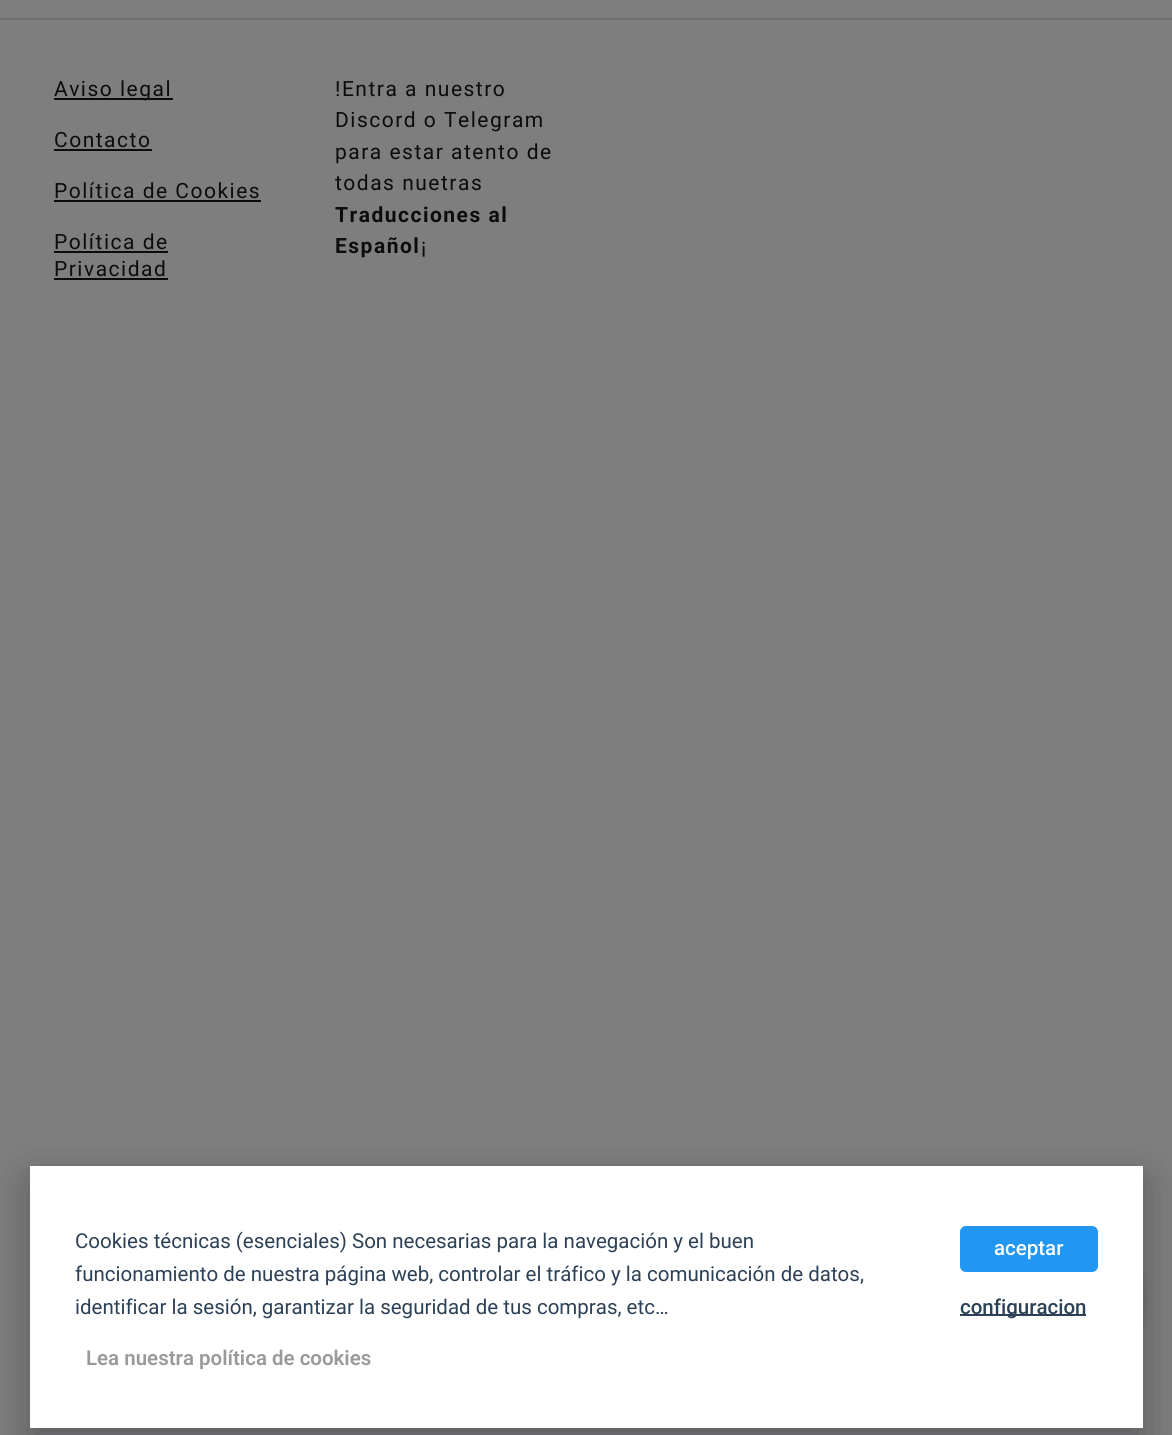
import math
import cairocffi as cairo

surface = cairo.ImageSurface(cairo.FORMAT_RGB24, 1172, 1435)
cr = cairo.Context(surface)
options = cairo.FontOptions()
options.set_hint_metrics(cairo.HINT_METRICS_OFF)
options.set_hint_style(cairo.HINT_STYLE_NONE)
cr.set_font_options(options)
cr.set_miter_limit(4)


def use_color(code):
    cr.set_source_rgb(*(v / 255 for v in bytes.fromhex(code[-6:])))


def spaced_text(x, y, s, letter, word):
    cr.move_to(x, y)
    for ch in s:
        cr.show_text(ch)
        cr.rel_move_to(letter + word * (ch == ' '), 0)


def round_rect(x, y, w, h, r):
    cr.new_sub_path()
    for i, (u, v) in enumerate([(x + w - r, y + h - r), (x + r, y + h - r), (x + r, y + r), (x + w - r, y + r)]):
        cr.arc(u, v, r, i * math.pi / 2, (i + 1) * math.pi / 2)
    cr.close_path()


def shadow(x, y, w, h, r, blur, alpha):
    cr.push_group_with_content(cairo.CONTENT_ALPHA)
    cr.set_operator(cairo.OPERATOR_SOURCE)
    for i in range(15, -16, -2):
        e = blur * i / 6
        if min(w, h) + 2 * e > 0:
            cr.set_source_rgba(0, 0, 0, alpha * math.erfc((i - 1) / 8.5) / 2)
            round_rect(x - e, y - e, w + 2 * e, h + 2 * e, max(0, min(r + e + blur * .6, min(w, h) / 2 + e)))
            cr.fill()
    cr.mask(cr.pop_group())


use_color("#7e7e7f")
cr.paint()
use_color("#6e6e6f")
cr.rectangle(0, 18, 1172, 2)
cr.fill()
use_color("#0b0c0c")
cr.rectangle(54, 98, 119, 2)
cr.fill()
cr.select_font_face("Roboto")
cr.set_font_size(21)
spaced_text(54, 96, "Aviso legal", 1.5, 0)
spaced_text(54, 147, "Contacto", 1.5, 0)
cr.rectangle(54, 149, 98, 2)
cr.fill()
spaced_text(54, 198, "Política de Cookies", 1.5, 0)
cr.rectangle(54, 200, 207, 2)
cr.fill()
spaced_text(54, 249, "Política de", 1.5, 0)
cr.rectangle(54, 251, 114, 2)
cr.fill()
spaced_text(54, 276, "Privacidad", 1.5, 0)
cr.rectangle(54, 278, 114, 2)
cr.fill()
spaced_text(335, 96, "!Entra a nuestro", 1.5, 0)
spaced_text(335, 127, "Discord o Telegram", 1.5, 0)
spaced_text(335, 159, "para estar atento de", 1.5, 0)
spaced_text(335, 190, "todas nuetras", 1.5, 0)
cr.select_font_face("Roboto", cairo.FONT_SLANT_NORMAL, cairo.FONT_WEIGHT_BOLD)
spaced_text(335, 222, "Traducciones al", 1.5, 0)
spaced_text(335, 253, "Español", 1.5, 0)
cr.select_font_face("Roboto")
spaced_text(421, 253, "¡", 1.5, 0)
use_color("#020203")
shadow(30, 1181, 1113, 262, 0, 21.5, 0.28)
use_color("#0b0c0c")
shadow(1041, 1251, 96, 96, 48, 7.5, 0.5)
use_color("#ffffff")
cr.rectangle(30, 1166, 1113, 262)
cr.fill()
cr.set_font_size(20.5)
use_color("#2d4156")
cr.move_to(75, 1248)
cr.show_text("Cookies técnicas (esenciales) Son necesarias para la navegación y el buen")
cr.move_to(75, 1281)
cr.show_text("funcionamiento de nuestra página web, controlar el tráfico y la comunicación de datos,")
cr.move_to(75, 1314)
cr.show_text("identificar la sesión, garantizar la seguridad de tus compras, etc…")
cr.select_font_face("Roboto SemiBold")
use_color("#999999")
cr.move_to(86, 1365)
cr.show_text("Lea nuestra política de cookies")
use_color("#2196f3")
round_rect(960, 1226, 138, 46, 6)
cr.fill()
cr.select_font_face("Roboto Medium")
use_color("#ffffff")
cr.move_to(994, 1255)
cr.show_text("aceptar")
use_color("#2d4156")
cr.rectangle(960, 1314, 126, 2)
cr.fill()
cr.move_to(960, 1314)
cr.show_text("configuracion")
surface.write_to_png("result.png")
